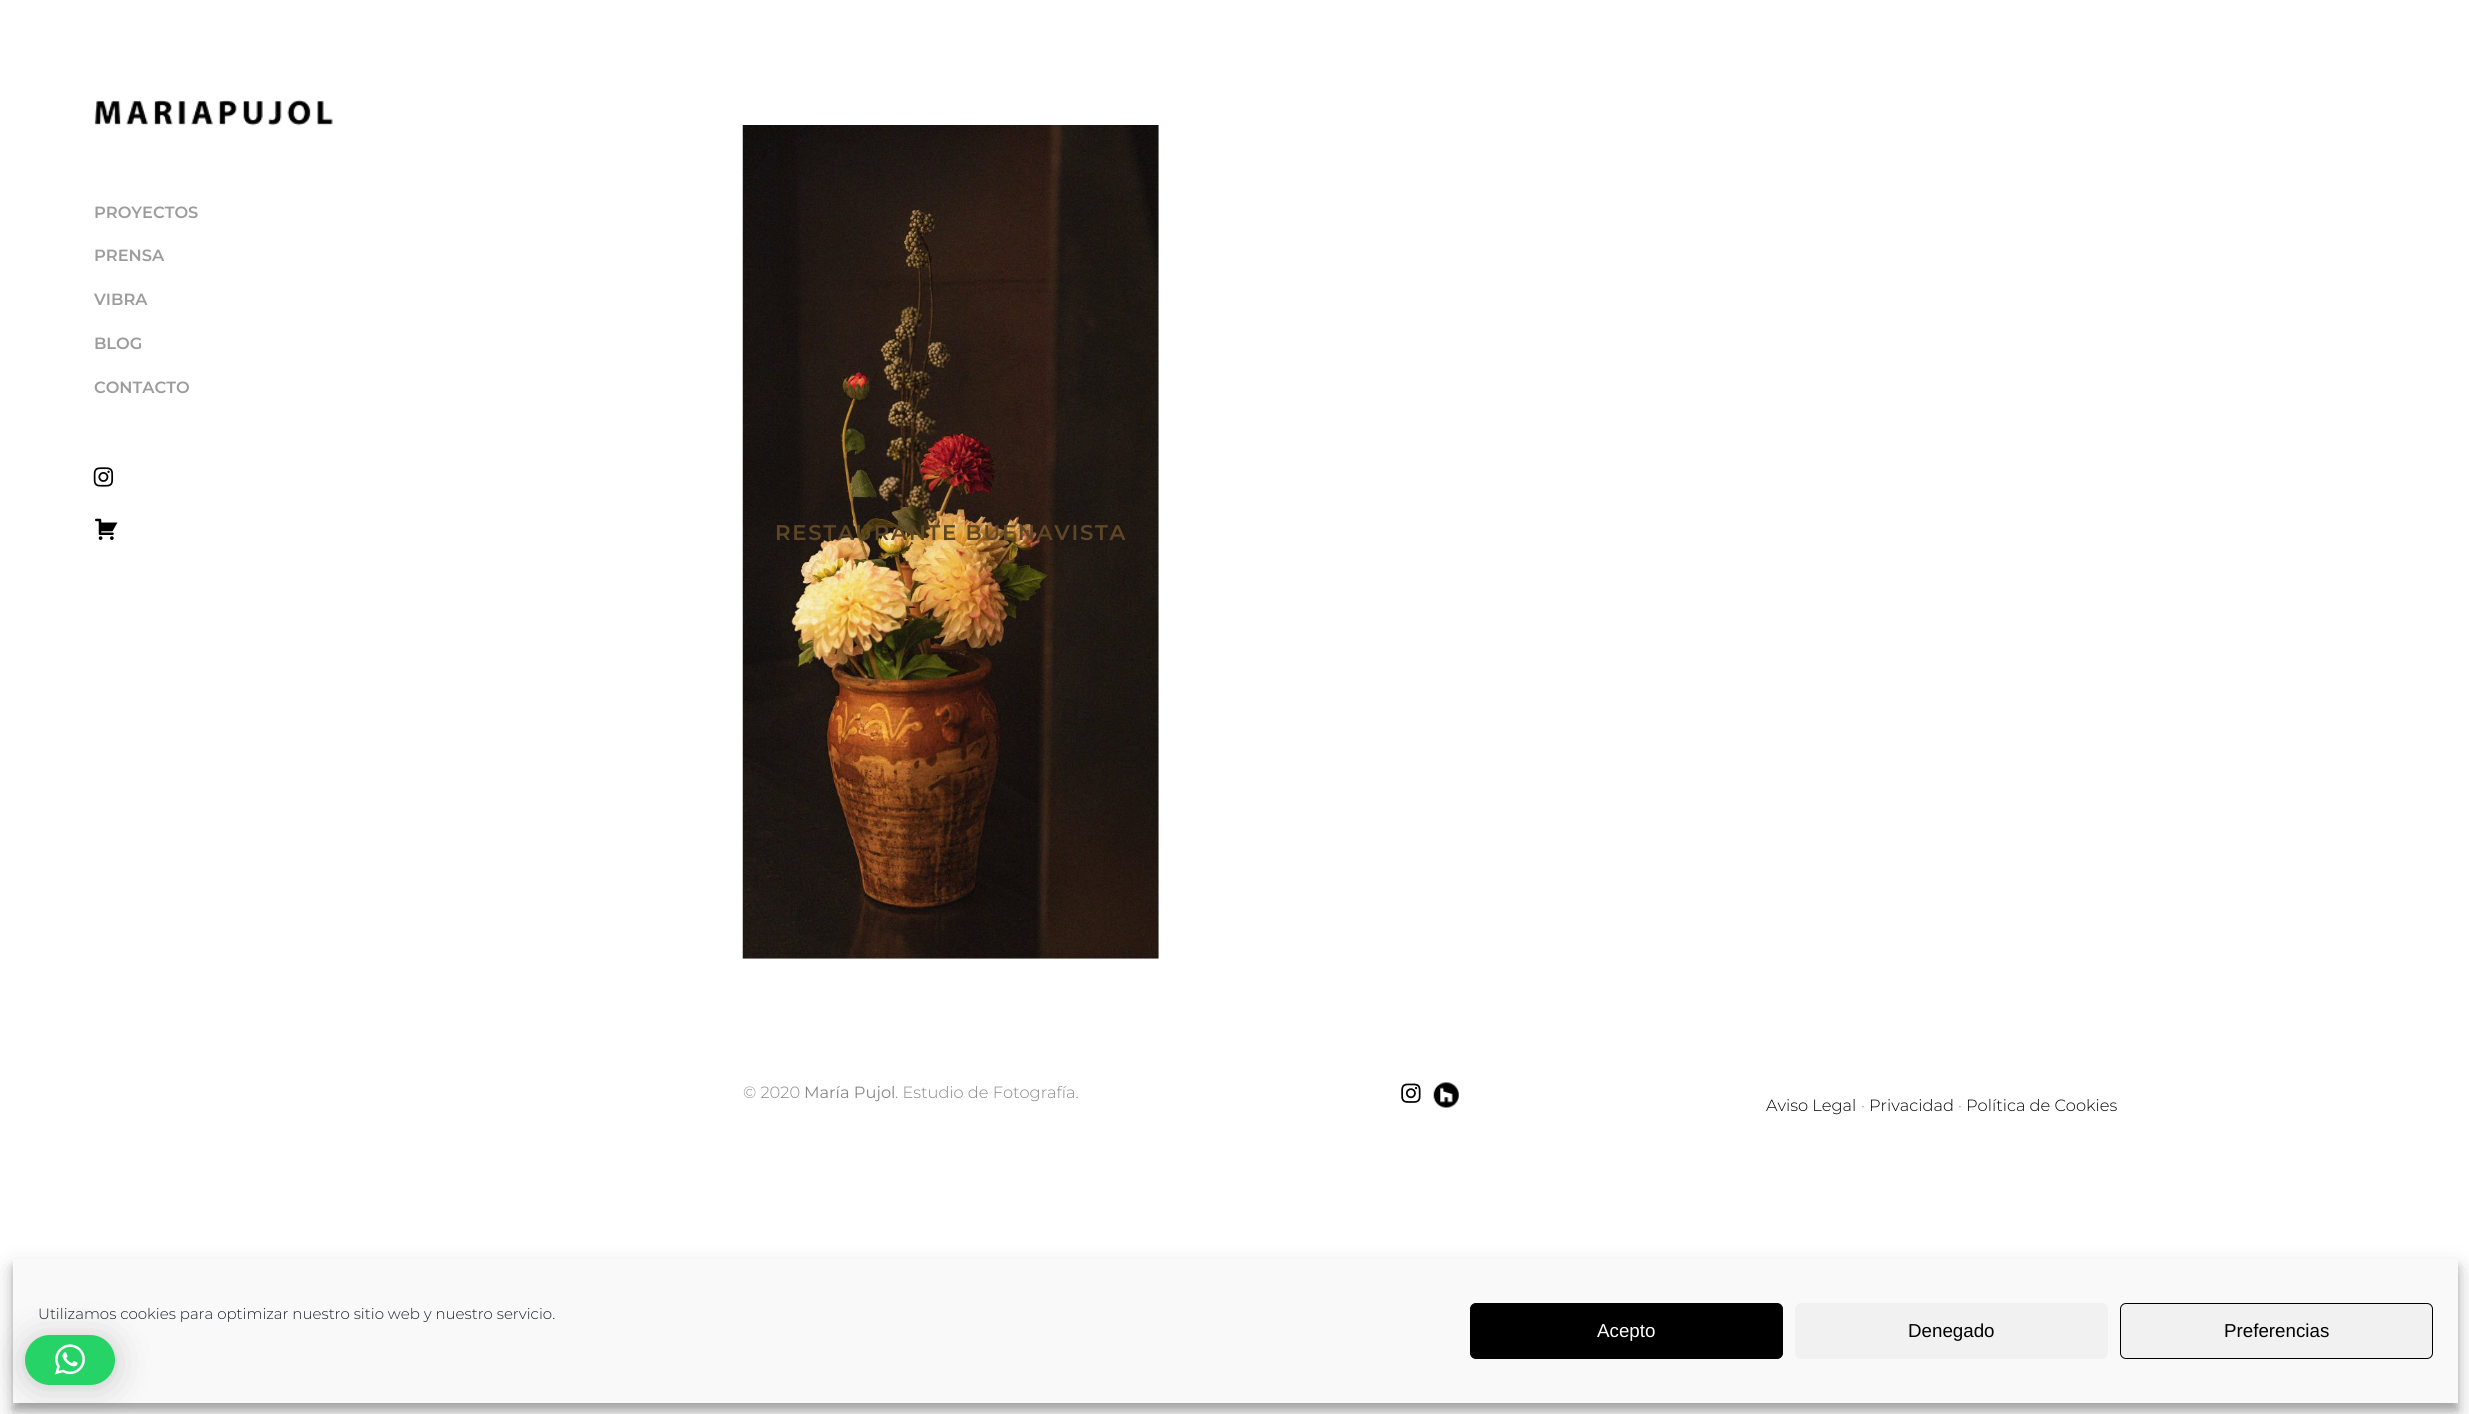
import math
import cairocffi as cairo

surface = cairo.ImageSurface(cairo.FORMAT_RGB24, 2469, 1414)
cr = cairo.Context(surface)
options = cairo.FontOptions()
options.set_hint_metrics(cairo.HINT_METRICS_OFF)
options.set_hint_style(cairo.HINT_STYLE_NONE)
cr.set_font_options(options)
cr.set_miter_limit(4)


def use_color(code):
    cr.set_source_rgb(*(v / 255 for v in bytes.fromhex(code[-6:])))


def spaced_text(x, y, s, letter, word):
    cr.move_to(x, y)
    for ch in s:
        cr.show_text(ch)
        cr.rel_move_to(letter + word * (ch == ' '), 0)


def round_rect(x, y, w, h, r):
    cr.new_sub_path()
    for i, (u, v) in enumerate([(x + w - r, y + h - r), (x + r, y + h - r), (x + r, y + r), (x + w - r, y + r)]):
        cr.arc(u, v, r, i * math.pi / 2, (i + 1) * math.pi / 2)
    cr.close_path()


def shadow(x, y, w, h, r, blur, alpha):
    cr.push_group_with_content(cairo.CONTENT_ALPHA)
    cr.set_operator(cairo.OPERATOR_SOURCE)
    for i in range(15, -16, -2):
        e = blur * i / 6
        if min(w, h) + 2 * e > 0:
            cr.set_source_rgba(0, 0, 0, alpha * math.erfc((i - 1) / 8.5) / 2)
            round_rect(x - e, y - e, w + 2 * e, h + 2 * e, max(0, min(r + e + blur * .6, min(w, h) / 2 + e)))
            cr.fill()
    cr.mask(cr.pop_group())


def picture(path, x, y, w, h):
    cr.save()
    cr.set_source_surface(cairo.ImageSurface.create_from_png(path), x, y)
    cr.rectangle(x, y, w, h)
    cr.fill()
    cr.restore()


use_color("#ffffff")
cr.paint()
picture("img1.png", 94, 100, 239, 26)
cr.select_font_face("Montserrat SemiBold")
cr.set_font_size(16.25)
use_color("#9c9c9c")
cr.move_to(94, 218)
cr.show_text("PROYECTOS")
cr.move_to(94, 261)
cr.show_text("PRENSA")
cr.move_to(94, 305)
cr.show_text("VIBRA")
cr.move_to(94, 349)
cr.show_text("BLOG")
cr.move_to(94, 393)
cr.show_text("CONTACTO")
picture("img2.png", 93, 467, 21, 20)
picture("img3.png", 95, 518, 23, 22)
picture("img4.png", 742, 125, 417, 834)
cr.set_font_size(21.25)
use_color("#5f4625")
spaced_text(775, 540, "RESTAURANTE BUENAVISTA", 1.7, 0)
cr.select_font_face("Montserrat Light")
cr.set_font_size(16.25)
use_color("#878787")
cr.move_to(743, 1098)
cr.show_text("© 2020")
cr.select_font_face("Montserrat")
cr.move_to(804, 1098)
cr.show_text("María Pujol")
cr.select_font_face("Montserrat Light")
cr.move_to(895, 1098)
cr.show_text(". Estudio de Fotografía.")
picture("img5.png", 1401, 1083, 20, 20)
picture("img6.png", 1433, 1082, 26, 26)
use_color("#000000")
cr.move_to(1766, 1111)
cr.show_text("Aviso Legal")
use_color("#878787")
cr.move_to(1861, 1111)
cr.show_text("·")
use_color("#000000")
cr.move_to(1869, 1111)
cr.show_text("Privacidad")
use_color("#878787")
cr.move_to(1958, 1111)
cr.show_text("·")
use_color("#000000")
cr.move_to(1966, 1111)
cr.show_text("Política de Cookies")
use_color("#000000")
shadow(13, 1266, 2445, 144, 0, 4, 0.23)
shadow(13, 1271, 2445, 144, 0, 12.5, 0.19)
use_color("#f9f9f9")
cr.rectangle(13, 1259, 2445, 144)
cr.fill()
use_color("#000000")
shadow(25, 1338, 90, 50, 25, 20, 0.16)
shadow(25, 1336, 90, 50, 25, 4, 0.06)
use_color("#25d366")
round_rect(25, 1335, 90, 50, 25)
cr.fill()
picture("img7.png", 55, 1344, 30, 31)
cr.set_font_size(15)
use_color("#191e23")
cr.move_to(38, 1319)
cr.show_text("Utilizamos cookies para optimizar nuestro sitio web y nuestro servicio.")
use_color("#000000")
round_rect(1470.5, 1303.5, 312, 55, 5.5)
cr.fill_preserve()
cr.set_line_width(1)
cr.stroke()
cr.select_font_face("Liberation Sans")
cr.set_font_size(18.75)
use_color("#ffffff")
cr.move_to(1597, 1337)
cr.show_text("Acepto")
use_color("#f1f1f1")
round_rect(1795, 1303, 313, 56, 6)
cr.fill()
use_color("#000000")
cr.move_to(1908, 1337)
cr.show_text("Denegado")
use_color("#f1f1f1")
round_rect(2120.5, 1303.5, 312, 55, 5.5)
cr.fill_preserve()
use_color("#000000")
cr.stroke()
cr.move_to(2224, 1337)
cr.show_text("Preferencias")
surface.write_to_png("result.png")
